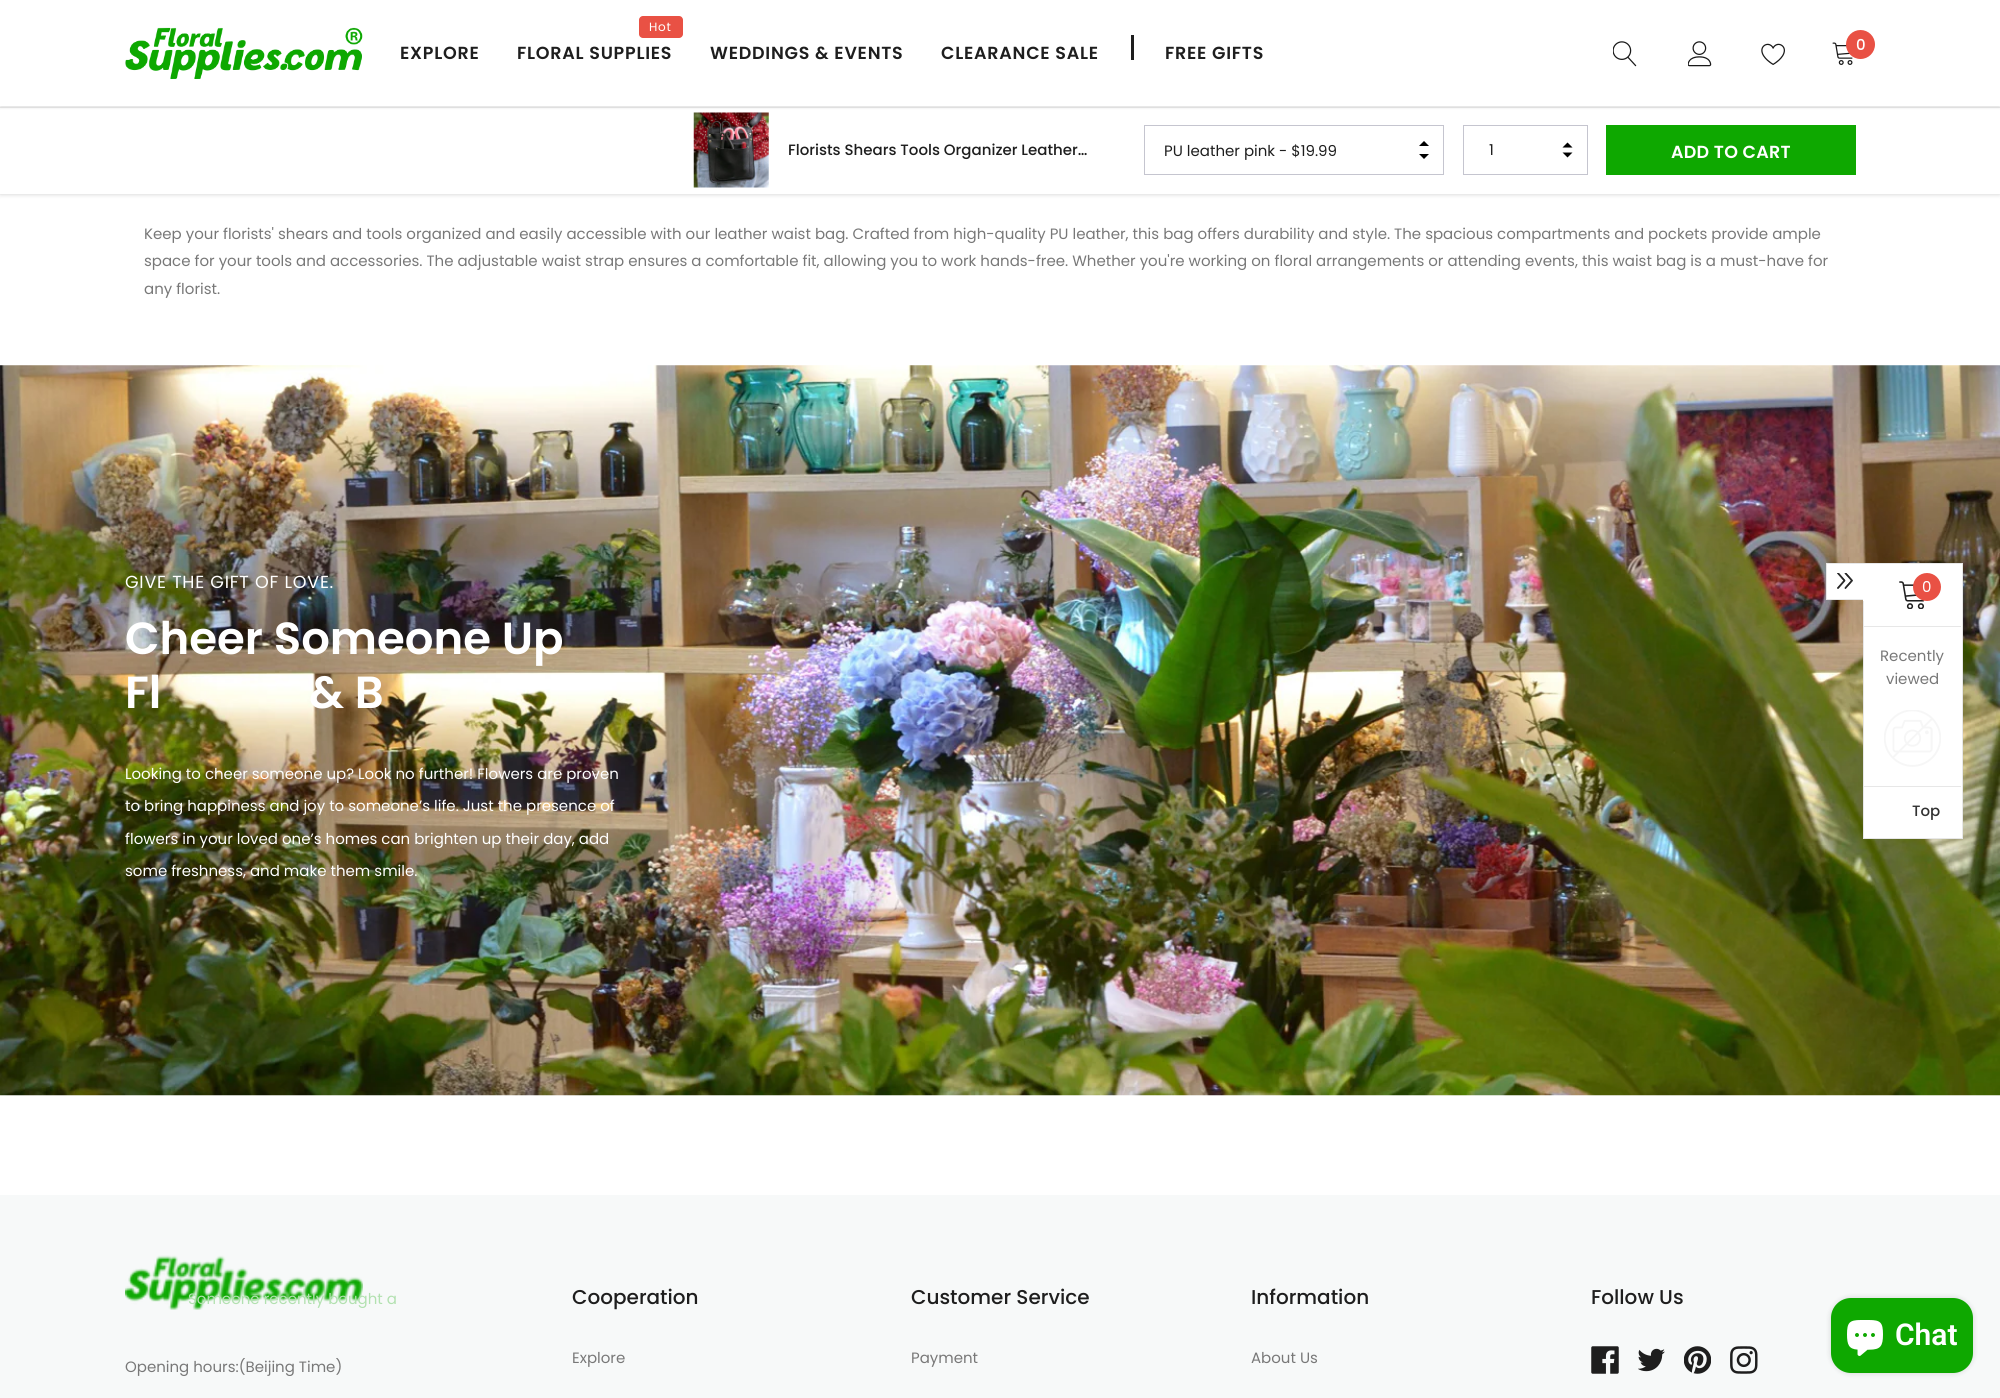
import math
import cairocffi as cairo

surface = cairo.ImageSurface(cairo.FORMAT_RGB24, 2000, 1398)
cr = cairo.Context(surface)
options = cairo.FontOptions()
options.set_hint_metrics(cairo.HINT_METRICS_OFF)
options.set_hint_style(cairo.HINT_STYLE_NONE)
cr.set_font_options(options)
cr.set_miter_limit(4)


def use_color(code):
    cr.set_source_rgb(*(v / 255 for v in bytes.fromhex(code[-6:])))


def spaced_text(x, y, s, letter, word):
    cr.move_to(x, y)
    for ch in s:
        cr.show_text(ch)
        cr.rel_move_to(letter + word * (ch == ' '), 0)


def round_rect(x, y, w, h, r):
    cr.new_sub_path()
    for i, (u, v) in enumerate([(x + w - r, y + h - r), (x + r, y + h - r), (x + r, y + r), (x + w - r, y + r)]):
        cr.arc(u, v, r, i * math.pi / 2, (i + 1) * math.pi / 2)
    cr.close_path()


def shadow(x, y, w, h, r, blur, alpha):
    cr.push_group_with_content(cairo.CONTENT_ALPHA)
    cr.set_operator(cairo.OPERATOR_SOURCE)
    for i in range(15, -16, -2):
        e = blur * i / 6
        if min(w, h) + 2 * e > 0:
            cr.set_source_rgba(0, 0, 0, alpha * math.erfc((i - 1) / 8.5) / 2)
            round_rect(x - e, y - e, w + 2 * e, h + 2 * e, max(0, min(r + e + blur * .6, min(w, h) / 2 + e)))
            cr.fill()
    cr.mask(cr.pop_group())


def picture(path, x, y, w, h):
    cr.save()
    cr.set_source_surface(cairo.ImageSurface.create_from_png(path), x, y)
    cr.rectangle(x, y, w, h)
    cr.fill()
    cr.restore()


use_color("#ffffff")
cr.paint()
use_color("#000000")
shadow(0, 106, 2000, 88, 0, 2.5, 0.2)
use_color("#ffffff")
cr.rectangle(0, 106, 2000, 88)
cr.fill()
use_color("#000000")
shadow(0, 1, 2000, 107, 0, 1, 0.1)
cr.rectangle(-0.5, -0.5, 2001, 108)
cr.set_source_rgba(0, 0, 0, 0.06)
cr.set_line_width(1)
cr.stroke()
use_color("#ffffff")
cr.rectangle(0, 0, 2000, 106)
cr.fill()
picture("img1.png", 125, 27, 238, 52)
cr.select_font_face("Poppins SemiBold")
cr.set_font_size(17.5)
use_color("#1e1e1e")
spaced_text(400, 59, "EXPLORE", 0.75, 0)
use_color("#e95144")
round_rect(639, 16, 44, 22, 4)
cr.fill()
cr.select_font_face("Poppins")
cr.set_font_size(12)
use_color("#ffffff")
spaced_text(649, 31, "Hot", 0.75, 0)
cr.select_font_face("Poppins SemiBold")
cr.set_font_size(17.5)
use_color("#1e1e1e")
spaced_text(517, 59, "FLORAL SUPPLIES", 0.75, 0)
spaced_text(710, 59, "WEDDINGS & EVENTS", 0.75, 0)
spaced_text(941, 59, "CLEARANCE SALE", 0.75, 0)
cr.rectangle(1131, 35, 3, 25)
cr.fill()
spaced_text(1165, 59, "FREE GIFTS", 0.75, 0)
picture("img2.png", 1613, 41, 24, 26)
picture("img3.png", 1688, 41, 24, 26)
picture("img4.png", 1761, 43, 24, 22)
picture("img5.png", 1832, 42, 21, 23)
use_color("#e95144")
cr.arc(1860.5, 44.5, 14.5, 0, 2 * math.pi)
cr.fill()
cr.select_font_face("Poppins Medium")
cr.set_font_size(15)
use_color("#ffffff")
cr.move_to(1856, 50)
cr.show_text("0")
picture("img6.png", 693, 112, 76, 76)
use_color("#1e1e1e")
cr.move_to(788, 155)
cr.show_text("Florists Shears Tools Organizer Leather…")
use_color("#000000")
cr.new_path()
cr.move_to(1429, 146)
cr.line_to(1419, 146)
cr.line_to(1424, 141)
cr.close_path()
cr.fill()
cr.rectangle(1144.5, 125.5, 299, 49)
use_color("#c5c5cf")
cr.stroke()
cr.select_font_face("Poppins")
use_color("#1e1e1e")
cr.move_to(1164, 156)
cr.show_text("PU leather pink - $19.99")
use_color("#000000")
cr.new_path()
cr.move_to(1419, 154)
cr.line_to(1429, 154)
cr.line_to(1424, 159)
cr.close_path()
cr.fill()
cr.rectangle(1463.5, 125.5, 124, 49)
use_color("#c5c5cf")
cr.stroke()
use_color("#1e1e1e")
cr.move_to(1489, 155)
cr.show_text("1")
use_color("#000000")
cr.new_path()
cr.move_to(1562.5, 152.5)
cr.line_to(1572.5, 152.5)
cr.line_to(1567.5, 157.5)
cr.close_path()
cr.move_to(1572.5, 147.5)
cr.line_to(1562.5, 147.5)
cr.line_to(1567.5, 142.5)
cr.close_path()
cr.fill()
use_color("#0ea800")
cr.rectangle(1606, 125, 250, 50)
cr.fill()
cr.select_font_face("Poppins SemiBold")
cr.set_font_size(17.5)
use_color("#ffffff")
spaced_text(1671, 158, "ADD TO CART", 0.25, 0)
cr.select_font_face("Poppins")
cr.set_font_size(15)
use_color("#787878")
cr.move_to(144, 239)
cr.show_text("Keep your florists' shears and tools organized and easily accessible with our leather waist bag. Crafted from high-quality PU leather, this bag offers durability and style. The spacious compartments and pockets provide ample")
cr.move_to(144, 266)
cr.show_text("space for your tools and accessories. The adjustable waist strap ensures a comfortable fit, allowing you to work hands-free. Whether you're working on floral arrangements or attending events, this waist bag is a must-have for")
cr.move_to(144, 294)
cr.show_text("any florist.")
picture("img7.png", 0, 365, 2000, 731)
cr.set_font_size(17.5)
use_color("#ffffff")
spaced_text(125, 588, "GIVE THE GIFT OF LOVE.", 0.75, 0)
cr.select_font_face("Poppins SemiBold")
cr.set_font_size(45)
cr.move_to(125, 654)
cr.show_text("Cheer Someone Up")
cr.move_to(125, 708)
cr.show_text("Fl")
cr.move_to(309, 708)
cr.show_text("& B")
cr.select_font_face("Poppins")
cr.set_font_size(15)
cr.move_to(125, 779)
cr.show_text("Looking to cheer someone up? Look no further! Flowers are proven")
cr.move_to(125, 811)
cr.show_text("to bring happiness and joy to someone’s life. Just the presence of")
cr.move_to(125, 844)
cr.show_text("flowers in your loved one’s homes can brighten up their day, add")
cr.move_to(125, 876)
cr.show_text("some freshness, and make them smile.")
cr.rectangle(1863.5, 563.5, 99, 275)
cr.fill_preserve()
use_color("#e7e7e7")
cr.stroke()
use_color("#ffffff")
cr.rectangle(1826.5, 563.5, 37, 36)
cr.fill_preserve()
use_color("#e7e7e7")
cr.stroke()
picture("img8.png", 1837, 573, 16, 16)
use_color("#ffffff")
cr.rectangle(1863, 564, 1, 37)
cr.fill()
picture("img9.png", 1899, 581, 25, 28)
use_color("#e95144")
cr.arc(1927, 587, 14, 0, 2 * math.pi)
cr.fill()
use_color("#ffffff")
cr.move_to(1922, 592)
cr.show_text("0")
use_color("#e7e7e7")
cr.rectangle(1864, 626, 97, 1)
cr.fill()
cr.rectangle(1864, 786, 97, 1)
cr.fill()
use_color("#787878")
cr.move_to(1880, 661)
cr.show_text("Recently")
cr.move_to(1886, 684)
cr.show_text("viewed")
picture("img10.png", 1884, 710, 57, 57)
cr.select_font_face("Poppins Medium")
use_color("#323232")
cr.move_to(1912, 816)
cr.show_text("Top")
use_color("#f7f9f9")
cr.rectangle(0, 1195, 2000, 203)
cr.fill()
cr.set_font_size(20)
use_color("#1e1e1e")
cr.move_to(572, 1304)
cr.show_text("Cooperation")
cr.select_font_face("Poppins")
cr.set_font_size(15)
use_color("#787878")
cr.move_to(572, 1363)
cr.show_text("Explore")
cr.select_font_face("Poppins Medium")
cr.set_font_size(20)
use_color("#1e1e1e")
cr.move_to(911, 1304)
cr.show_text("Customer Service")
cr.select_font_face("Poppins")
cr.set_font_size(15)
use_color("#787878")
cr.move_to(911, 1363)
cr.show_text("Payment")
cr.select_font_face("Poppins Medium")
cr.set_font_size(20)
use_color("#1e1e1e")
cr.move_to(1251, 1304)
cr.show_text("Information")
cr.select_font_face("Poppins")
cr.set_font_size(15)
use_color("#787878")
cr.move_to(1251, 1363)
cr.show_text("About Us")
cr.select_font_face("Poppins Medium")
cr.set_font_size(20)
use_color("#1e1e1e")
cr.move_to(1591, 1304)
cr.show_text("Follow Us")
picture("img11.png", 1591, 1346, 28, 28)
picture("img12.png", 1638, 1348, 27, 24)
picture("img13.png", 1684, 1346, 27, 28)
picture("img14.png", 1730, 1346, 28, 28)
picture("img15.png", 125, 1255, 238, 55)
cr.select_font_face("Poppins")
cr.set_font_size(15)
use_color("#787878")
cr.move_to(125, 1372)
cr.show_text("Opening hours:(Beijing Time)")
use_color("#b2e1b0")
cr.move_to(188, 1304)
cr.show_text("Someone recently bought a")
use_color("#000000")
shadow(1831, 1298, 142, 75, 20, 3, 0.15)
use_color("#0ea800")
round_rect(1831, 1298, 142, 75, 20)
cr.fill()
picture("img16.png", 1847, 1320, 36, 36)
cr.select_font_face("Roboto SemiBold")
cr.set_font_size(30)
use_color("#ffffff")
cr.move_to(1895, 1345)
cr.show_text("Chat")
surface.write_to_png("result.png")
